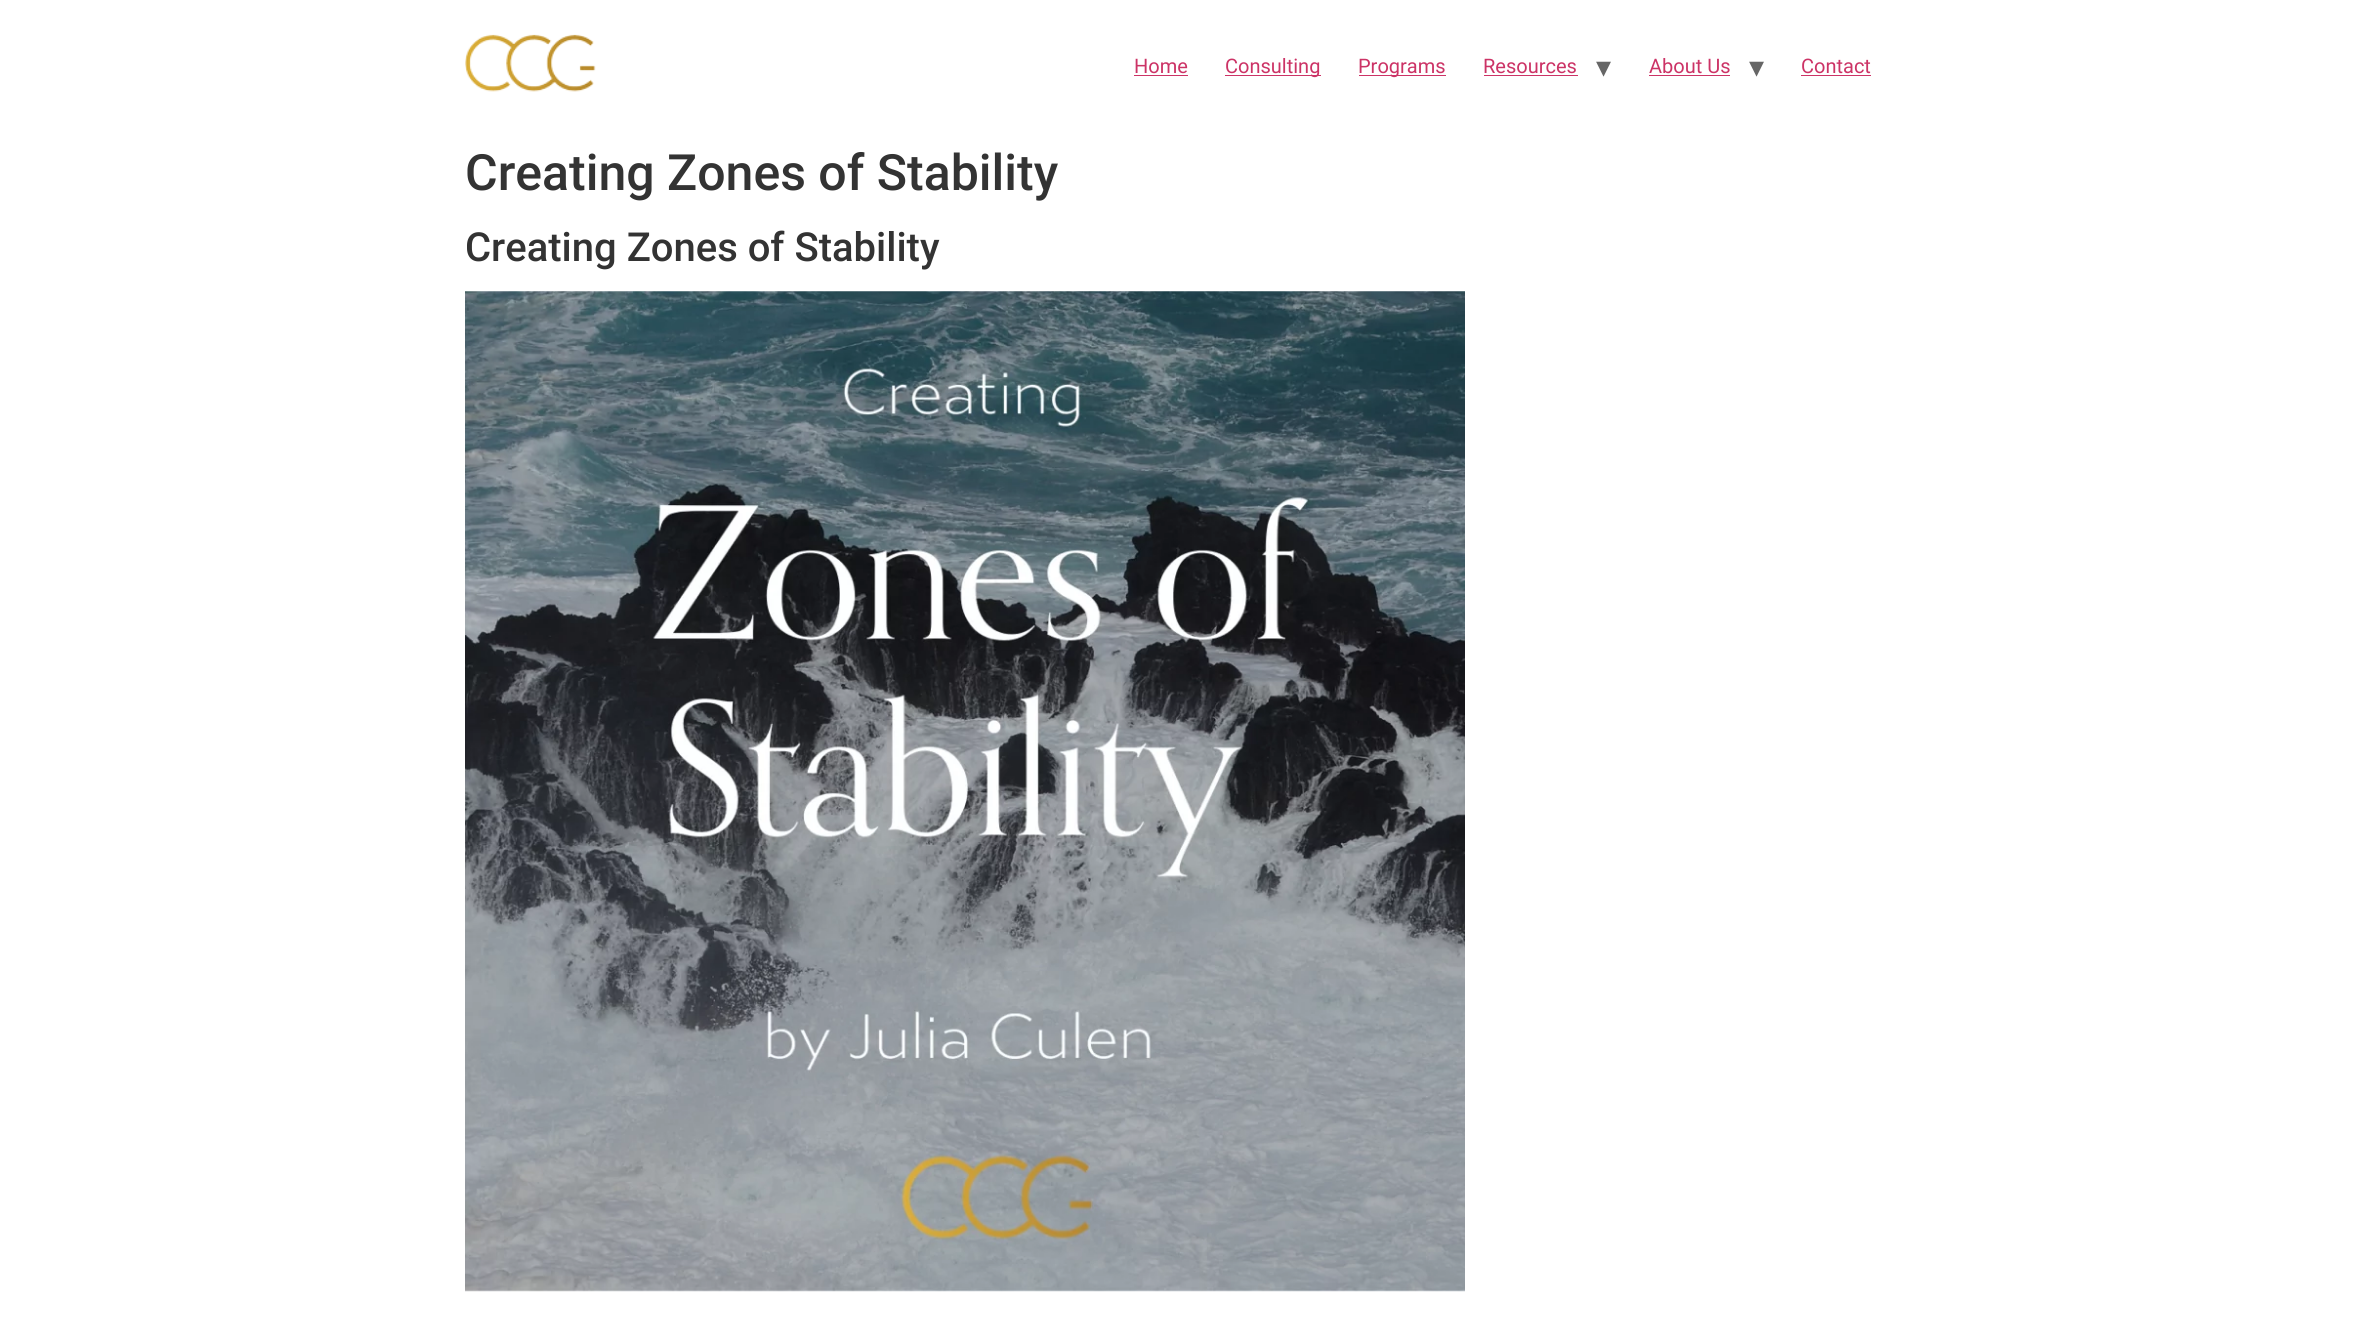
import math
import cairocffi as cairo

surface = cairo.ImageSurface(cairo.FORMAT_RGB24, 2354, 1337)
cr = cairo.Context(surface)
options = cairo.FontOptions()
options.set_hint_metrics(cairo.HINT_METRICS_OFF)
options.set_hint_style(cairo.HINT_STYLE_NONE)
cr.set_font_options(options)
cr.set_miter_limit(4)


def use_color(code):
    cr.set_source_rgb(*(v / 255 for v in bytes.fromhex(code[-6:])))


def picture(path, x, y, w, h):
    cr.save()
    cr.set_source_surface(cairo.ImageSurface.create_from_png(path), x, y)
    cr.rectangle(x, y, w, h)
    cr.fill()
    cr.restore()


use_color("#ffffff")
cr.paint()
picture("img1.png", 465, 34, 131, 58)
cr.select_font_face("Roboto")
cr.set_font_size(20)
use_color("#cc3366")
cr.move_to(1134, 73)
cr.show_text("Home")
cr.rectangle(1134, 75, 54, 1)
cr.fill()
cr.rectangle(1225, 75, 96, 1)
cr.fill()
cr.move_to(1225, 73)
cr.show_text("Consulting")
cr.rectangle(1359, 75, 87, 1)
cr.fill()
cr.move_to(1358, 73)
cr.show_text("Programs")
cr.move_to(1483, 73)
cr.show_text("Resources")
cr.rectangle(1484, 75, 94, 1)
cr.fill()
cr.select_font_face("DejaVu Sans")
cr.set_font_size(30)
use_color("#666666")
cr.move_to(1596, 77)
cr.show_text("▾")
cr.select_font_face("Roboto")
cr.set_font_size(20)
use_color("#cc3366")
cr.move_to(1649, 73)
cr.show_text("About Us")
cr.rectangle(1649, 75, 81, 1)
cr.fill()
cr.select_font_face("DejaVu Sans")
cr.set_font_size(30)
use_color("#666666")
cr.move_to(1749, 77)
cr.show_text("▾")
cr.select_font_face("Roboto")
cr.set_font_size(20)
use_color("#cc3366")
cr.move_to(1801, 73)
cr.show_text("Contact")
cr.rectangle(1801, 75, 70, 1)
cr.fill()
cr.select_font_face("Roboto Medium")
cr.set_font_size(50)
use_color("#333333")
cr.move_to(465, 190)
cr.show_text("Creating Zones of Stability")
cr.set_font_size(40)
cr.move_to(465, 261)
cr.show_text("Creating Zones of Stability")
picture("img2.png", 465, 291, 1000, 1001)
surface.write_to_png("result.png")
